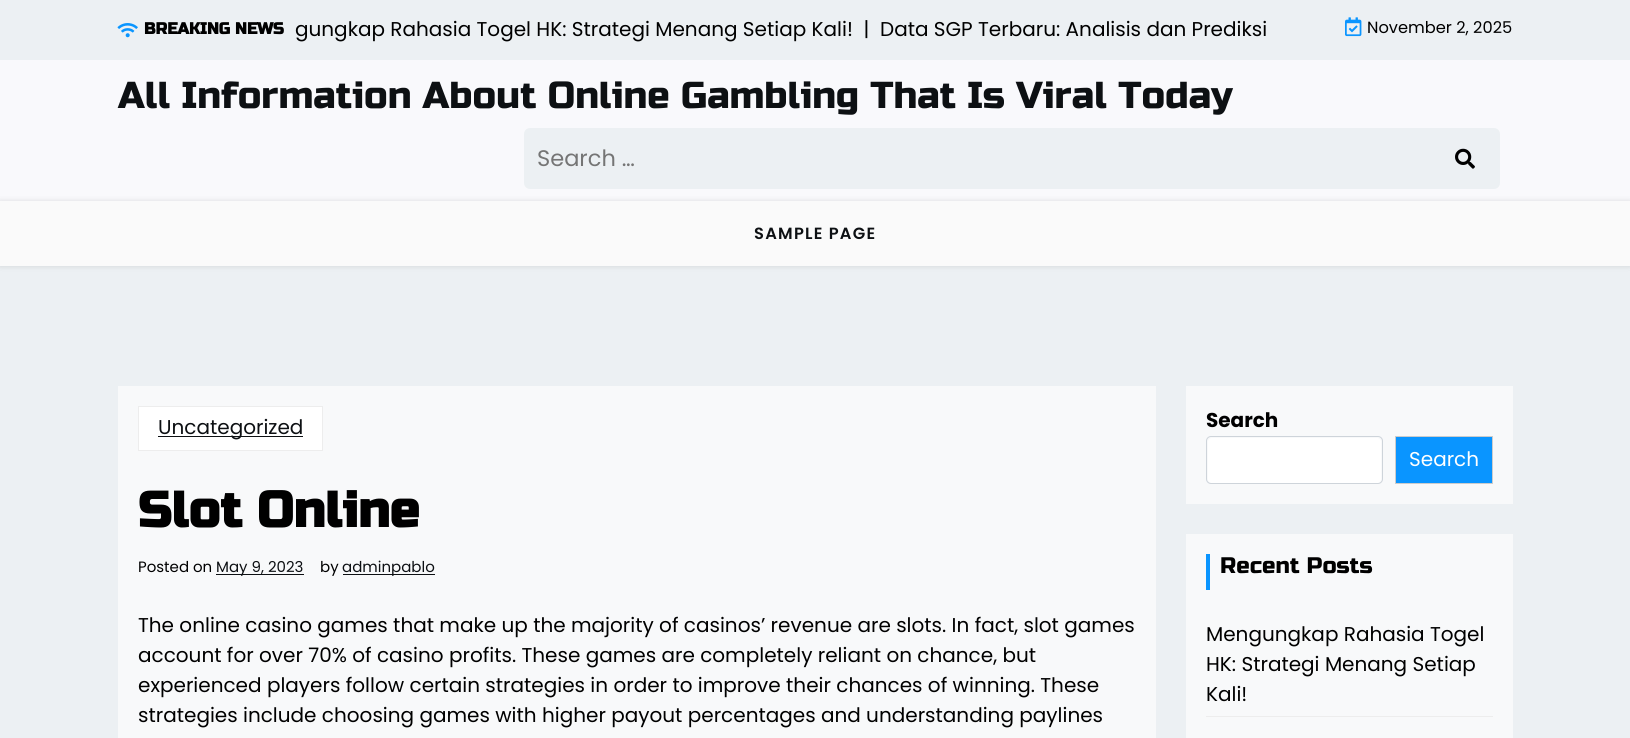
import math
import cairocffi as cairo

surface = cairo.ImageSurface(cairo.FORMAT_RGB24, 1630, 738)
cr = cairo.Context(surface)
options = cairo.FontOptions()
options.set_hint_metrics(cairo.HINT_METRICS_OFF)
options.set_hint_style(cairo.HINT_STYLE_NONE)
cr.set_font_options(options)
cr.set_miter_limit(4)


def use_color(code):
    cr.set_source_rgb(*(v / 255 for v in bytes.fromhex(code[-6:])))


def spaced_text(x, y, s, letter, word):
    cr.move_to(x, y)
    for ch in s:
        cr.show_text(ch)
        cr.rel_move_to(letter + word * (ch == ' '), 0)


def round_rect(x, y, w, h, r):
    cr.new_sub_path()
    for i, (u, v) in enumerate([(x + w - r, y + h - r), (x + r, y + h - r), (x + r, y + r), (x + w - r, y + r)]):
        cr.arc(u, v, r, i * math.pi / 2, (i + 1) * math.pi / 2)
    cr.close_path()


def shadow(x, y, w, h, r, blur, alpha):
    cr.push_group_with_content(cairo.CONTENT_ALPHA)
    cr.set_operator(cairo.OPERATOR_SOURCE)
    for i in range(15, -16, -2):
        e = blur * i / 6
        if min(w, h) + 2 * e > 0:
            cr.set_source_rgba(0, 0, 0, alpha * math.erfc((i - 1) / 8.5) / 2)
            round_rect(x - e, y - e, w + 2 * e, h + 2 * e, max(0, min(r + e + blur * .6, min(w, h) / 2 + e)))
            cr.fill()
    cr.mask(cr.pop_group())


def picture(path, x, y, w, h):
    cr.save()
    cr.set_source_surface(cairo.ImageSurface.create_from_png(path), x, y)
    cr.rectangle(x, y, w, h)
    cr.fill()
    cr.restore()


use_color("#ecf0f3")
cr.paint()
picture("img1.png", 117, 23, 21, 15)
cr.select_font_face("Russo One", cairo.FONT_SLANT_NORMAL, cairo.FONT_WEIGHT_BOLD)
cr.set_font_size(16.25)
use_color("#000000")
cr.move_to(144, 34)
cr.show_text("BREAKING NEWS")
cr.select_font_face("Poppins")
cr.set_font_size(20)
cr.move_to(295, 36)
cr.show_text("gungkap Rahasia Togel HK: Strategi Menang Setiap Kali!  |")
cr.move_to(880, 36)
cr.show_text("Data SGP Terbaru: Analisis dan Prediksi")
picture("img2.png", 1345, 17, 17, 20)
cr.set_font_size(16.25)
cr.move_to(1367, 33)
cr.show_text("November 2, 2025")
use_color("#f9f9fc")
cr.rectangle(0, 60, 1630, 141)
cr.fill()
cr.select_font_face("Russo One")
cr.set_font_size(37.5)
use_color("#0d1013")
cr.move_to(118, 108)
cr.show_text("All Information About Online Gambling That Is Viral Today")
use_color("#ecf0f3")
round_rect(524, 128, 976, 61, 6)
cr.fill()
cr.select_font_face("Poppins")
cr.set_font_size(22.5)
use_color("#757575")
cr.move_to(537, 166)
cr.show_text("Search …")
picture("img3.png", 1455, 148, 20, 21)
use_color("#000000")
shadow(0, 201, 1630, 65, 0, 3, 0.12)
use_color("#fafafa")
cr.rectangle(0, 201, 1630, 65)
cr.fill()
cr.select_font_face("Poppins SemiBold")
cr.set_font_size(16.25)
use_color("#0d1013")
spaced_text(754, 239, "SAMPLE PAGE", 1.25, 0)
use_color("#f8f9fa")
cr.rectangle(118, 386, 1038, 352)
cr.fill()
use_color("#ffffff")
cr.rectangle(138.5, 406.5, 184, 44)
cr.fill_preserve()
use_color("#ededed")
cr.set_line_width(1)
cr.stroke()
use_color("#0d1013")
cr.rectangle(158, 436, 145, 1)
cr.fill()
cr.select_font_face("Poppins")
cr.set_font_size(20)
cr.move_to(158, 434)
cr.show_text("Uncategorized")
cr.select_font_face("Russo One", cairo.FONT_SLANT_NORMAL, cairo.FONT_WEIGHT_BOLD)
cr.set_font_size(50)
use_color("#000000")
cr.move_to(138, 527)
cr.show_text("Slot Online")
cr.select_font_face("Poppins")
cr.set_font_size(15)
cr.move_to(138, 572)
cr.show_text("Posted on")
use_color("#0d1013")
cr.rectangle(216, 574, 88, 1)
cr.fill()
cr.move_to(216, 572)
cr.show_text("May 9, 2023")
use_color("#000000")
cr.move_to(320, 572)
cr.show_text("by")
use_color("#0d1013")
cr.rectangle(343, 574, 92, 1)
cr.fill()
cr.move_to(342, 572)
cr.show_text("adminpablo")
cr.set_font_size(20)
use_color("#000000")
cr.move_to(138, 632)
cr.show_text("The online casino games that make up the majority of casinos’ revenue are slots. In fact, slot games")
cr.move_to(138, 662)
cr.show_text("account for over 70% of casino profits. These games are completely reliant on chance, but")
cr.move_to(138, 692)
cr.show_text("experienced players follow certain strategies in order to improve their chances of winning. These")
cr.move_to(138, 722)
cr.show_text("strategies include choosing games with higher payout percentages and understanding paylines")
use_color("#f8f9fa")
cr.rectangle(1186, 386, 327, 118)
cr.fill()
cr.select_font_face("Poppins", cairo.FONT_SLANT_NORMAL, cairo.FONT_WEIGHT_BOLD)
use_color("#000000")
cr.move_to(1206, 427)
cr.show_text("Search")
use_color("#ffffff")
round_rect(1208, 438, 173, 45, 4)
cr.fill()
round_rect(1206.5, 436.5, 176, 47, 4.5)
use_color("#ced4da")
cr.stroke()
use_color("#0a95ff")
cr.rectangle(1395.5, 436.5, 97, 47)
cr.fill_preserve()
use_color("#cccccc")
cr.stroke()
cr.select_font_face("Poppins")
use_color("#ffffff")
cr.move_to(1409, 466)
cr.show_text("Search")
use_color("#f8f9fa")
cr.rectangle(1186, 534, 327, 204)
cr.fill()
use_color("#0a95ff")
cr.rectangle(1206, 554, 4, 36)
cr.fill()
cr.select_font_face("Russo One")
cr.set_font_size(22.5)
use_color("#000000")
cr.move_to(1220, 573)
cr.show_text("Recent Posts")
use_color("#ededed")
cr.rectangle(1206, 716, 287, 1)
cr.fill()
cr.select_font_face("Poppins")
cr.set_font_size(20)
use_color("#000000")
cr.move_to(1206, 641)
cr.show_text("Mengungkap Rahasia Togel")
cr.move_to(1206, 671)
cr.show_text("HK: Strategi Menang Setiap")
cr.move_to(1206, 701)
cr.show_text("Kali!")
surface.write_to_png("result.png")
